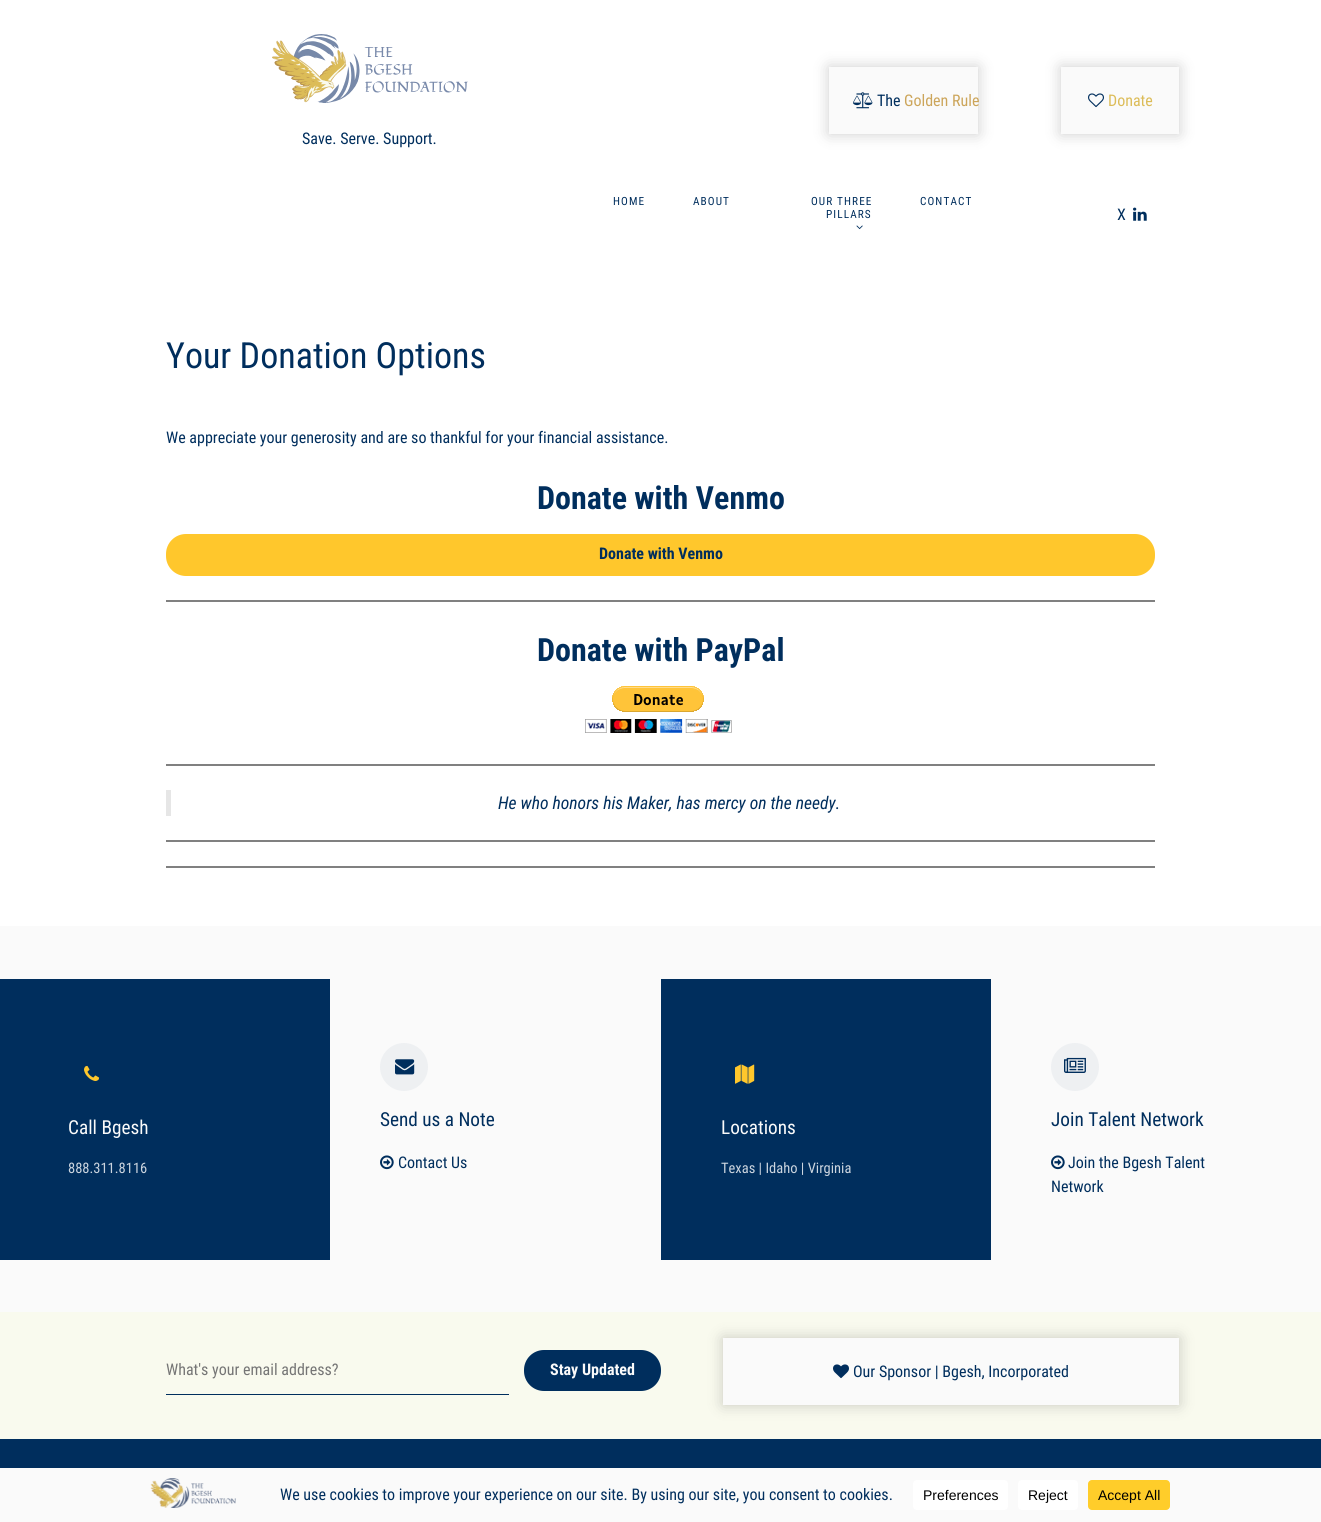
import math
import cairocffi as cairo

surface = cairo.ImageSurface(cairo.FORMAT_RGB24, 1321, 1522)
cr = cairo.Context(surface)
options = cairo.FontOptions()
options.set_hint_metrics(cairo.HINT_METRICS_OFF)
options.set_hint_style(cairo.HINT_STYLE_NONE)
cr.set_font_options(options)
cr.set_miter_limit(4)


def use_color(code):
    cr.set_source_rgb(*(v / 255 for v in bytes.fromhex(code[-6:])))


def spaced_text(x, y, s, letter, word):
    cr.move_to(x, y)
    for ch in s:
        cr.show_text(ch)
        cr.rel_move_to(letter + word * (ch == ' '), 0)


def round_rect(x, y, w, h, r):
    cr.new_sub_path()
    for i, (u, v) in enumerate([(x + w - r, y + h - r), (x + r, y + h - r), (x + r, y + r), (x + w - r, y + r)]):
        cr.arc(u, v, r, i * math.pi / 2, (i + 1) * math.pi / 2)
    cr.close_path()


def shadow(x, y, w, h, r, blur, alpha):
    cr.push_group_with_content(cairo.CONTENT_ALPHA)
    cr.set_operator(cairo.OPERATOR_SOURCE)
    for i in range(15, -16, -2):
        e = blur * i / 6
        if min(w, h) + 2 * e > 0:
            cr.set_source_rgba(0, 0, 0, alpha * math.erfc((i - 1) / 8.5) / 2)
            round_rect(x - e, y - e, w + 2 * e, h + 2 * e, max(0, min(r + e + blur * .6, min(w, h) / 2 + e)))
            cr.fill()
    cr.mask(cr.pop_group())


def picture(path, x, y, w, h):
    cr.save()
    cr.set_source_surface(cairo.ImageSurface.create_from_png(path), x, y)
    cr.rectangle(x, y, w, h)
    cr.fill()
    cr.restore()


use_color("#ffffff")
cr.paint()
use_color("#000000")
shadow(829, 67, 149, 67, 0, 7.5, 0.2)
use_color("#fafafa")
cr.rectangle(829, 67, 149, 67)
cr.fill()
picture("img1.png", 853, 92, 20, 17)
cr.select_font_face("Roboto Condensed")
cr.set_font_size(16)
use_color("#002e5d")
cr.move_to(877, 106)
cr.show_text("The")
use_color("#cca55a")
cr.move_to(904, 106)
cr.show_text("Golden Rule")
use_color("#000000")
shadow(1061, 67, 118, 67, 0, 7.5, 0.2)
use_color("#fafafa")
cr.rectangle(1061, 67, 118, 67)
cr.fill()
picture("img2.png", 1088, 93, 16, 15)
use_color("#dcbc58")
cr.move_to(1108, 106)
cr.show_text("Donate")
picture("img3.png", 272, 34, 196, 69)
use_color("#002e5d")
cr.move_to(302, 144)
cr.show_text("Save. Serve. Support.")
cr.set_font_size(11.25)
spaced_text(613, 205, "HOME", 1.1, 0)
spaced_text(693, 205, "ABOUT", 1.1, 0)
spaced_text(811, 205, "OUR THREE", 1.1, 0)
spaced_text(826, 218, "PILLARS", 1.1, 0)
picture("img4.png", 856, 225, 7, 5)
spaced_text(920, 205, "CONTACT", 1.1, 0)
cr.set_font_size(16)
cr.move_to(1117, 220)
cr.show_text("X")
picture("img5.png", 1133, 207, 14, 14)
cr.set_font_size(36)
cr.move_to(166, 368)
cr.show_text("Your Donation Options")
cr.set_font_size(16)
cr.move_to(166, 443)
cr.show_text("We appreciate your generosity and are so thankful for your financial assistance.")
cr.select_font_face("Roboto Condensed", cairo.FONT_SLANT_NORMAL, cairo.FONT_WEIGHT_BOLD)
cr.set_font_size(32)
cr.move_to(537, 509)
cr.show_text("Donate with Venmo")
use_color("#ffc72c")
round_rect(166, 534, 989, 42, 20)
cr.fill()
cr.set_font_size(16)
use_color("#002e5d")
cr.move_to(599, 559)
cr.show_text("Donate with Venmo")
use_color("#808080")
cr.rectangle(166, 600, 989, 2)
cr.fill()
cr.set_font_size(32)
use_color("#002e5d")
cr.move_to(537, 661)
cr.show_text("Donate with PayPal")
picture("img6.png", 585, 686, 147, 47)
use_color("#808080")
cr.rectangle(166, 764, 989, 2)
cr.fill()
use_color("#e6e6e6")
cr.rectangle(166, 790, 5, 26)
cr.fill()
cr.select_font_face("Roboto Condensed", cairo.FONT_SLANT_ITALIC)
cr.set_font_size(17.6)
use_color("#002e5d")
cr.move_to(498, 809)
cr.show_text("He who honors his Maker, has mercy on the needy.")
use_color("#808080")
cr.rectangle(166, 840, 989, 2)
cr.fill()
cr.rectangle(166, 866, 989, 2)
cr.fill()
use_color("#fafafa")
cr.rectangle(0, 926, 1321, 386)
cr.fill()
use_color("#002e5d")
cr.rectangle(0, 979, 330, 281)
cr.fill()
picture("img7.png", 84, 1065, 16, 16)
cr.select_font_face("Roboto Condensed")
cr.set_font_size(19.25)
use_color("#fafafa")
cr.move_to(68, 1134)
cr.show_text("Call Bgesh")
cr.set_font_size(14.5)
use_color("#ccd5df")
cr.move_to(68, 1173)
cr.show_text("888.311.8116")
use_color("#eef0f2")
cr.new_path()
cr.arc(404, 1067, 24, 0, 2 * math.pi)
cr.fill()
picture("img8.png", 395, 1059, 20, 16)
cr.set_font_size(19.25)
use_color("#002e5d")
cr.move_to(380, 1126)
cr.show_text("Send us a Note")
picture("img9.png", 380, 1155, 14, 15)
cr.set_font_size(16)
cr.move_to(398, 1168)
cr.show_text("Contact Us")
cr.rectangle(661, 979, 330, 281)
cr.fill()
picture("img10.png", 735, 1064, 20, 20)
cr.set_font_size(19.25)
use_color("#fafafa")
cr.move_to(721, 1134)
cr.show_text("Locations")
cr.set_font_size(14.5)
use_color("#ccd5df")
cr.move_to(721, 1173)
cr.show_text("Texas | Idaho | Virginia")
use_color("#eef0f2")
cr.new_path()
cr.arc(1075, 1067, 24, 0, 2 * math.pi)
cr.fill()
picture("img11.png", 1064, 1057, 22, 16)
cr.set_font_size(19.25)
use_color("#002e5d")
cr.move_to(1051, 1126)
cr.show_text("Join Talent Network")
picture("img9.png", 1051, 1155, 14, 15)
cr.set_font_size(16)
cr.move_to(1068, 1168)
cr.show_text("Join the Bgesh Talent")
cr.move_to(1051, 1192)
cr.show_text("Network")
use_color("#f9faee")
cr.rectangle(0, 1312, 1321, 127)
cr.fill()
use_color("#002e5d")
cr.rectangle(166, 1394, 343, 1)
cr.fill()
use_color("#757575")
cr.move_to(166, 1375)
cr.show_text("What's your email address?")
use_color("#002e5d")
round_rect(524, 1350, 137, 41, 20)
cr.fill()
cr.select_font_face("Roboto Condensed", cairo.FONT_SLANT_NORMAL, cairo.FONT_WEIGHT_BOLD)
use_color("#fafafa")
cr.move_to(550, 1375)
cr.show_text("Stay Updated")
use_color("#000000")
shadow(723, 1338, 456, 67, 0, 7.5, 0.2)
use_color("#fafafa")
cr.rectangle(723, 1338, 456, 67)
cr.fill()
picture("img12.png", 833, 1364, 16, 15)
cr.select_font_face("Roboto Condensed")
use_color("#002e5d")
cr.move_to(853, 1377)
cr.show_text("Our Sponsor | Bgesh, Incorporated")
cr.rectangle(0, 1439, 1321, 29)
cr.fill()
use_color("#fafafa")
cr.rectangle(0, 1468, 1321, 54)
cr.fill()
picture("img13.png", 150, 1478, 86, 30)
use_color("#002e5d")
cr.move_to(280, 1500)
cr.show_text("We use cookies to improve your experience on our site. By using our site, you consent to cookies.")
use_color("#ffffff")
round_rect(913, 1480, 95, 30, 4)
cr.fill()
cr.select_font_face("Liberation Sans")
cr.set_font_size(14)
use_color("#000000")
cr.move_to(923, 1500)
cr.show_text("Preferences")
use_color("#ffffff")
round_rect(1018, 1480, 60, 30, 4)
cr.fill()
use_color("#000000")
cr.move_to(1028, 1500)
cr.show_text("Reject")
use_color("#ffcd2a")
round_rect(1088, 1480, 82, 30, 4)
cr.fill()
use_color("#000000")
cr.move_to(1098, 1500)
cr.show_text("Accept All")
surface.write_to_png("result.png")
